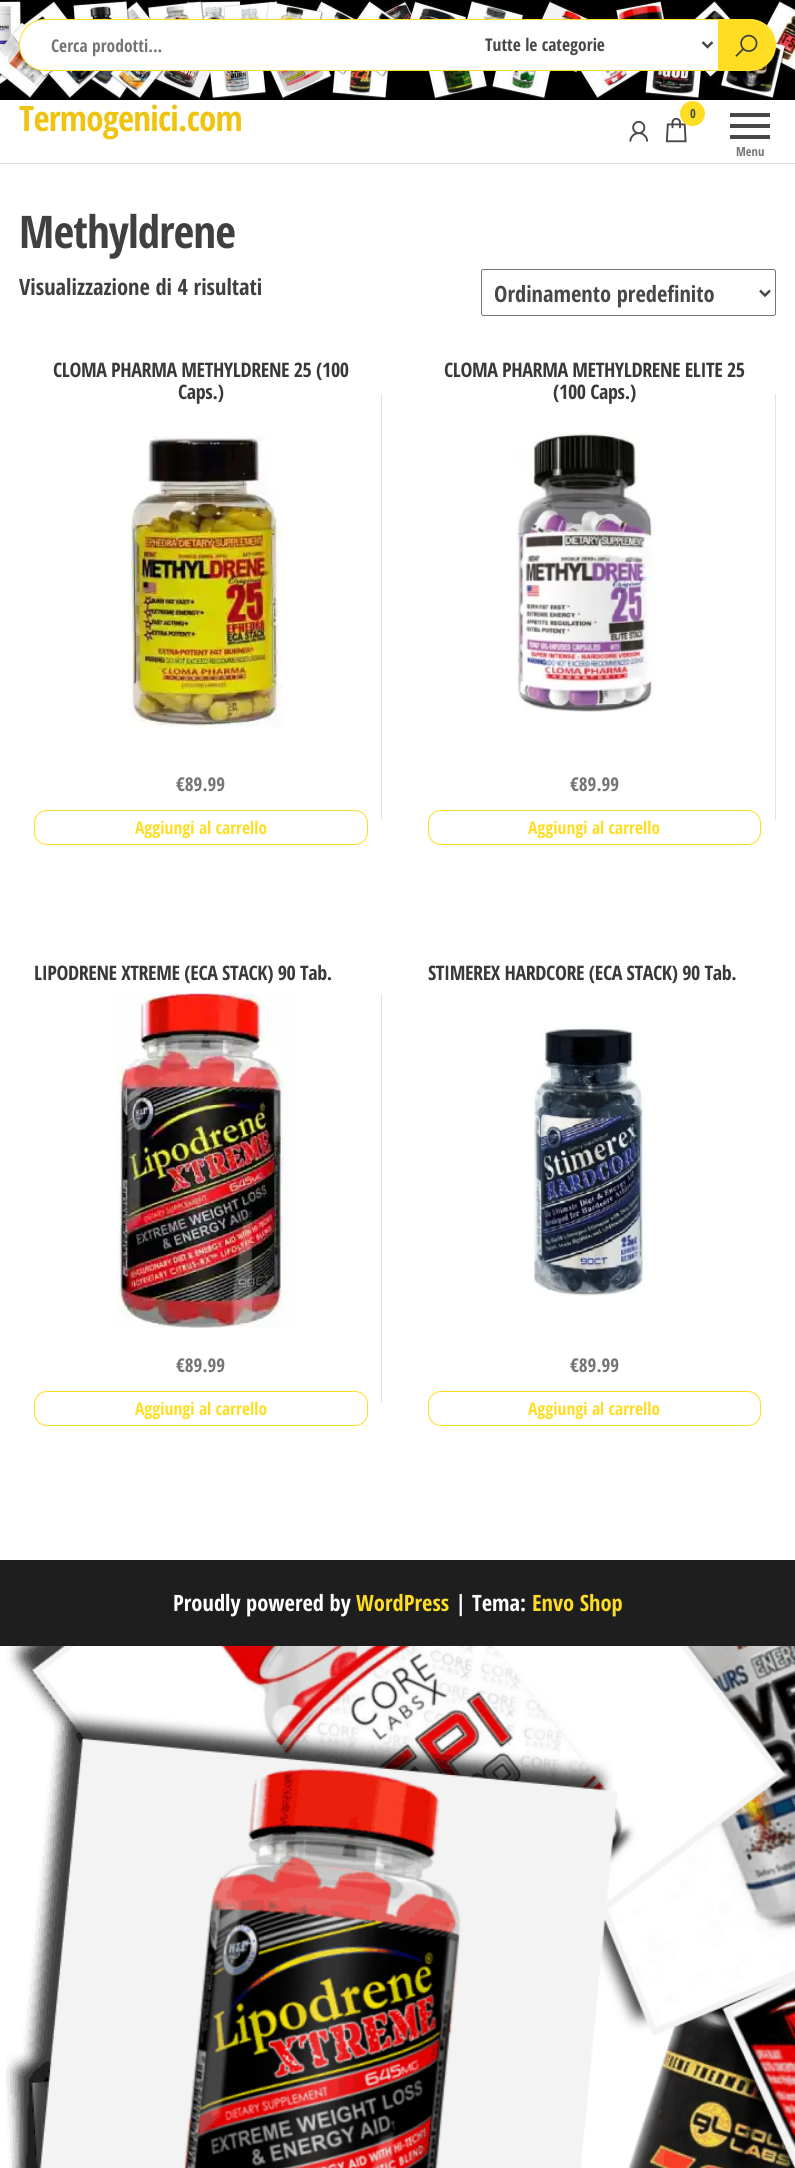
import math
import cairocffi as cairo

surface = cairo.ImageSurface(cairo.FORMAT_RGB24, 795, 2168)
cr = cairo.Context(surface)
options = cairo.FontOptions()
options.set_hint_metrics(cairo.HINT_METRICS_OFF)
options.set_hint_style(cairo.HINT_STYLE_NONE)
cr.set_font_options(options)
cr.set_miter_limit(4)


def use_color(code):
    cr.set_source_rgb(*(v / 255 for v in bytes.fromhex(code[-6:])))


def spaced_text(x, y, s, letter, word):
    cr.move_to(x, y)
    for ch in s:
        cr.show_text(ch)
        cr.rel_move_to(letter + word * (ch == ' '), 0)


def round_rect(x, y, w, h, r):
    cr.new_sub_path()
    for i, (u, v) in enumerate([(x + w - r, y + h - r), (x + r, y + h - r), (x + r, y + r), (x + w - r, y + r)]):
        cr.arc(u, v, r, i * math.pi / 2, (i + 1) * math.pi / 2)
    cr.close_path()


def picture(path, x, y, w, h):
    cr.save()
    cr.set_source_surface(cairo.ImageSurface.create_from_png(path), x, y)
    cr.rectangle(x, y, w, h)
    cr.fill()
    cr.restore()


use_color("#ffffff")
cr.paint()
picture("img1.png", 6, 1646, 789, 522)
picture("img2.png", 0, 0, 795, 100)
use_color("#ffffff")
round_rect(19.5, 19.5, 756, 51, 25.5)
cr.fill_preserve()
use_color("#ffdd22")
cr.set_line_width(1)
cr.stroke()
cr.select_font_face("Open Sans Condensed", cairo.FONT_SLANT_NORMAL, cairo.FONT_WEIGHT_BOLD)
cr.set_font_size(17.5)
use_color("#757575")
cr.move_to(51, 52)
cr.show_text("Cerca prodotti...")
cr.new_path()
cr.move_to(702.5, 42)
cr.line_to(707.5, 47)
cr.line_to(712.5, 42)
use_color("#484848")
cr.set_line_width(2.5)
cr.stroke()
cr.save()
cr.rectangle(485, 31, 206, 27)
cr.clip()
cr.move_to(485, 51)
cr.show_text("Tutte le categorie")
cr.restore()
use_color("#ffdd22")
cr.new_path()
cr.move_to(718, 20)
cr.line_to(750, 20)
cr.curve_to(764, 20, 775, 31, 775, 45)
cr.curve_to(775, 59, 764, 70, 750, 70)
cr.line_to(718, 70)
cr.close_path()
cr.fill()
picture("img3.png", 735, 34, 23, 23)
use_color("#dddddd")
cr.rectangle(0, 163, 795, 1)
cr.fill()
cr.set_font_size(35)
use_color("#efc310")
spaced_text(19, 131, "Termogenici.com", -0.75, 0)
picture("img4.png", 629, 120, 20, 22)
picture("img5.png", 665, 117, 22, 26)
use_color("#ffdd22")
cr.arc(692.5, 113.5, 12.5, 0, 2 * math.pi)
cr.fill()
cr.set_font_size(12.5)
use_color("#484848")
cr.move_to(690, 118)
cr.show_text("0")
cr.rectangle(730, 113, 40, 4)
cr.fill()
cr.rectangle(730, 124, 40, 4)
cr.fill()
cr.rectangle(730, 135, 40, 4)
cr.fill()
use_color("#757575")
cr.move_to(736, 156)
cr.show_text("Menu")
cr.set_font_size(45)
use_color("#404040")
spaced_text(19, 248, "Methyldrene", -0.9, 0)
cr.set_font_size(22.5)
cr.move_to(19, 295)
cr.show_text("Visualizzazione di 4 risultati")
round_rect(481.5, 269.5, 294, 46, 2)
use_color("#767676")
cr.set_line_width(1)
cr.stroke()
cr.new_path()
cr.move_to(760, 290.5)
cr.line_to(765, 295.5)
cr.line_to(770, 290.5)
use_color("#484848")
cr.set_line_width(2.5)
cr.stroke()
cr.move_to(494, 302)
cr.show_text("Ordinamento predefinito")
cr.set_font_size(20)
use_color("#39393a")
spaced_text(53, 377, "CLOMA PHARMA METHYLDRENE 25 (100", -0.4, 0)
spaced_text(178, 399, "Caps.)", -0.4, 0)
picture("img6.png", 127, 436, 159, 292)
cr.set_font_size(19)
use_color("#757575")
cr.move_to(176, 791)
cr.show_text("€89.99")
use_color("#e2e2e2")
cr.rectangle(381, 394, 1, 426)
cr.fill()
round_rect(34.5, 810.5, 333, 34, 12.5)
use_color("#ffdd22")
cr.set_line_width(1)
cr.stroke()
cr.set_font_size(17.5)
cr.move_to(135, 834)
cr.show_text("Aggiungi al carrello")
cr.set_font_size(20)
use_color("#39393a")
spaced_text(444, 377, "CLOMA PHARMA METHYLDRENE ELITE 25", -0.4, 0)
spaced_text(553, 399, "(100 Caps.)", -0.4, 0)
picture("img7.png", 516, 432, 139, 280)
cr.set_font_size(19)
use_color("#757575")
cr.move_to(570, 791)
cr.show_text("€89.99")
use_color("#e2e2e2")
cr.rectangle(775, 394, 1, 426)
cr.fill()
round_rect(428.5, 810.5, 332, 34, 12.5)
use_color("#ffdd22")
cr.stroke()
cr.set_font_size(17.5)
cr.move_to(528, 834)
cr.show_text("Aggiungi al carrello")
cr.set_font_size(20)
use_color("#39393a")
spaced_text(34, 980, "LIPODRENE XTREME (ECA STACK) 90 Tab.", -0.4, 0)
picture("img8.png", 116, 993, 181, 335)
cr.set_font_size(19)
use_color("#757575")
cr.move_to(176, 1372)
cr.show_text("€89.99")
use_color("#e2e2e2")
cr.rectangle(381, 994, 1, 409)
cr.fill()
round_rect(34.5, 1391.5, 333, 34, 12.5)
use_color("#ffdd22")
cr.stroke()
cr.set_font_size(17.5)
cr.move_to(135, 1415)
cr.show_text("Aggiungi al carrello")
cr.set_font_size(20)
use_color("#39393a")
spaced_text(428, 980, "STIMEREX HARDCORE (ECA STACK) 90 Tab.", -0.4, 0)
picture("img9.png", 532, 1027, 116, 269)
cr.set_font_size(19)
use_color("#757575")
cr.move_to(570, 1372)
cr.show_text("€89.99")
round_rect(428.5, 1391.5, 332, 34, 12.5)
use_color("#ffdd22")
cr.stroke()
cr.set_font_size(17.5)
cr.move_to(528, 1415)
cr.show_text("Aggiungi al carrello")
use_color("#1e1e1e")
cr.rectangle(0, 1560, 795, 86)
cr.fill()
cr.set_font_size(22.5)
use_color("#ffffff")
cr.move_to(173, 1611)
cr.show_text("Proudly powered by")
use_color("#ffdd22")
cr.move_to(356, 1611)
cr.show_text("WordPress")
use_color("#ffffff")
cr.move_to(455, 1611)
cr.show_text("| Tema:")
use_color("#ffdd22")
cr.move_to(532, 1611)
cr.show_text("Envo Shop")
surface.write_to_png("result.png")
